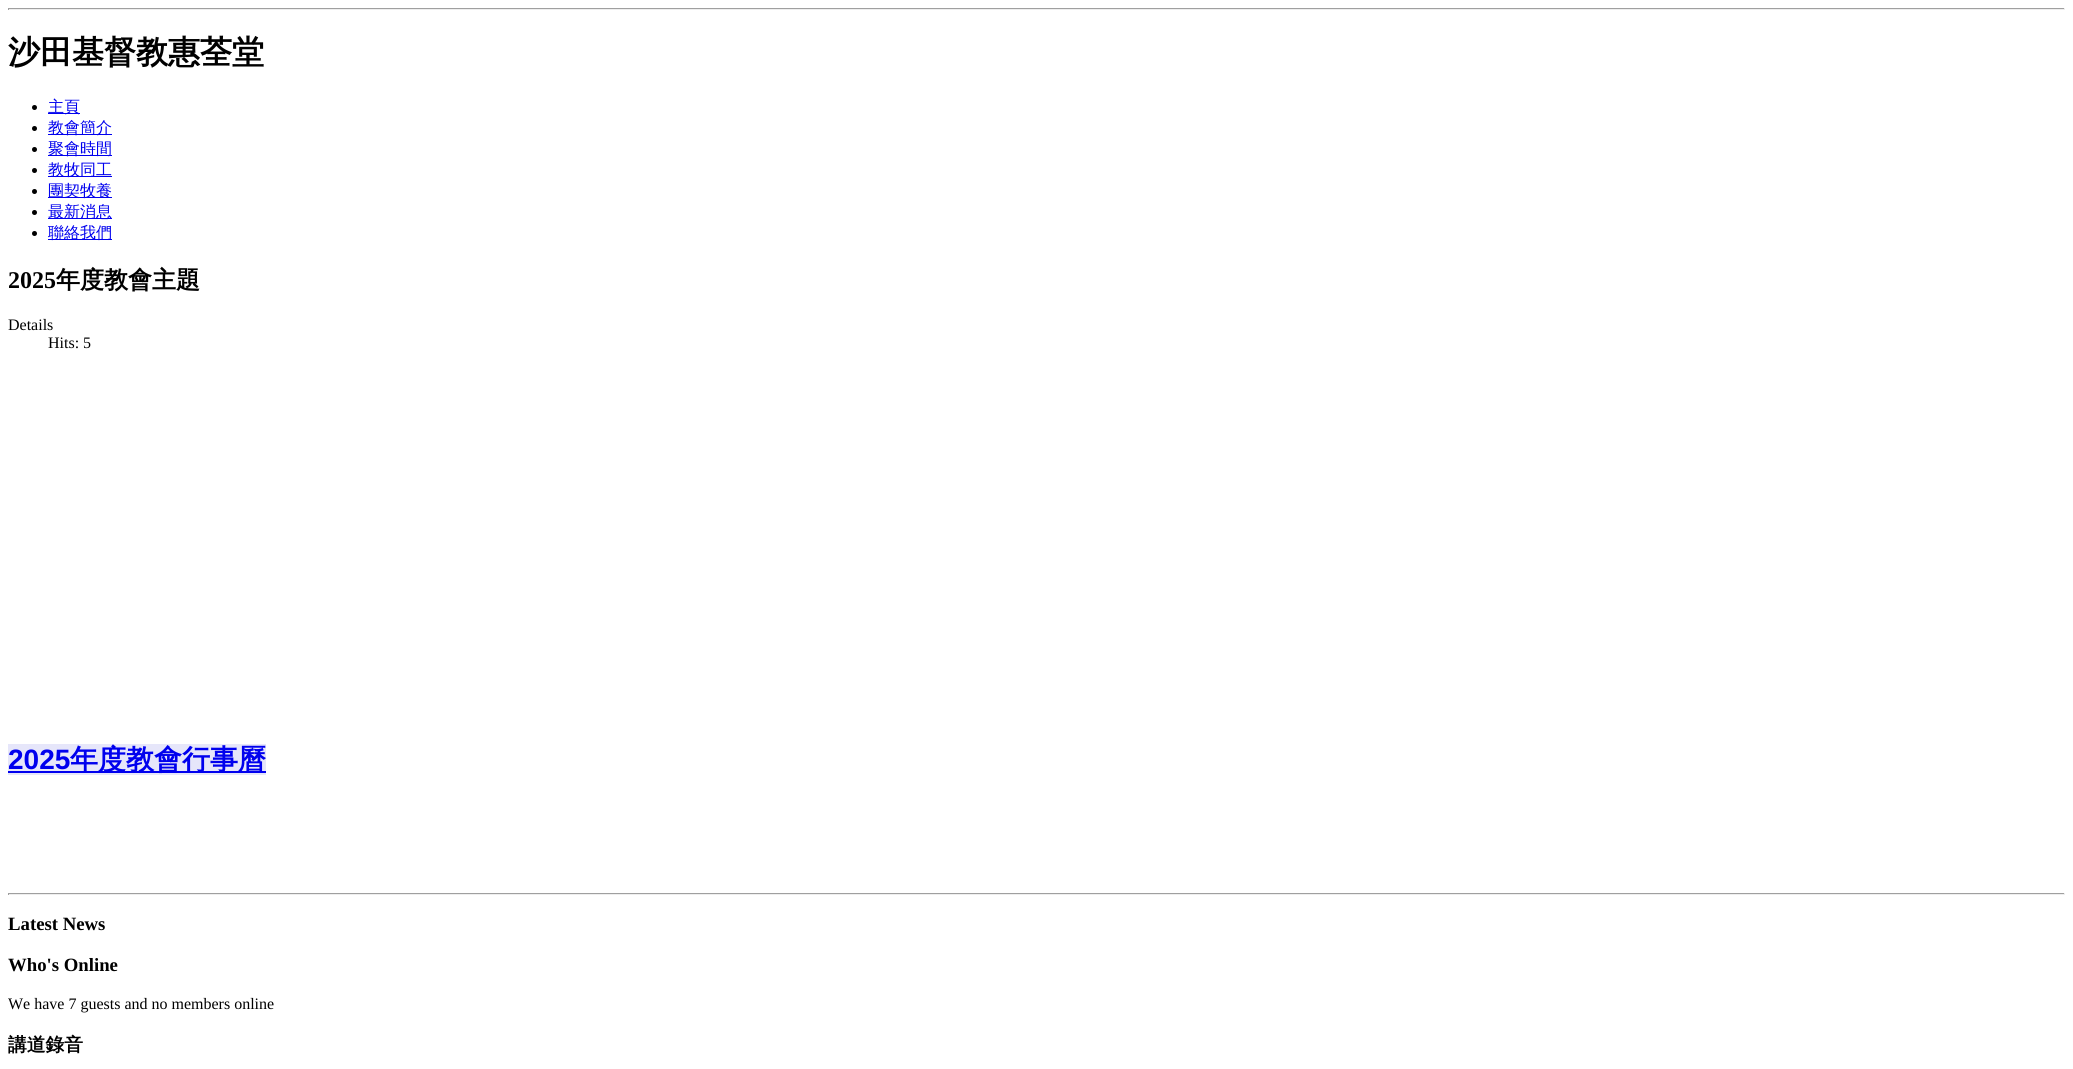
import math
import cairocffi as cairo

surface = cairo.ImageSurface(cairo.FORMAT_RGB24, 2073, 1069)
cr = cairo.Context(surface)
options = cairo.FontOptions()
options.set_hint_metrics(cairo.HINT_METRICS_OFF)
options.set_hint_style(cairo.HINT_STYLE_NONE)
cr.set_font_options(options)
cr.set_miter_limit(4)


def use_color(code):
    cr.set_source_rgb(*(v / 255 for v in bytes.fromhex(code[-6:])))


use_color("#ffffff")
cr.paint()
use_color("#9f9f9f")
cr.rectangle(8, 8, 2057, 1)
cr.fill()
use_color("#eeeeee")
cr.rectangle(2064, 8, 1, 2)
cr.fill()
cr.rectangle(8, 9, 2057, 1)
cr.fill()
use_color("#9f9f9f")
cr.rectangle(8, 8, 1, 2)
cr.fill()
cr.select_font_face("WenQuanYi Zen Hei", cairo.FONT_SLANT_NORMAL, cairo.FONT_WEIGHT_BOLD)
cr.set_font_size(32)
use_color("#000000")
cr.move_to(8, 63)
cr.show_text("沙田基督教惠荃堂")
cr.new_path()
cr.arc(34.5, 107.5, 2.5, 0, 2 * math.pi)
cr.fill()
use_color("#0000ee")
cr.rectangle(48, 113, 32, 1)
cr.fill()
cr.select_font_face("WenQuanYi Zen Hei Medium")
cr.set_font_size(16)
cr.move_to(48, 112)
cr.show_text("主頁")
use_color("#000000")
cr.new_path()
cr.arc(34.5, 128.5, 2.5, 0, 2 * math.pi)
cr.fill()
use_color("#0000ee")
cr.rectangle(48, 134, 64, 1)
cr.fill()
cr.move_to(48, 133)
cr.show_text("教會簡介")
use_color("#000000")
cr.new_path()
cr.arc(34.5, 149.5, 2.5, 0, 2 * math.pi)
cr.fill()
use_color("#0000ee")
cr.rectangle(48, 155, 64, 1)
cr.fill()
cr.move_to(48, 154)
cr.show_text("聚會時間")
use_color("#000000")
cr.new_path()
cr.arc(34.5, 170.5, 2.5, 0, 2 * math.pi)
cr.fill()
use_color("#0000ee")
cr.rectangle(48, 176, 64, 1)
cr.fill()
cr.move_to(48, 175)
cr.show_text("教牧同工")
use_color("#000000")
cr.new_path()
cr.arc(34.5, 191.5, 2.5, 0, 2 * math.pi)
cr.fill()
use_color("#0000ee")
cr.rectangle(48, 197, 64, 1)
cr.fill()
cr.move_to(48, 196)
cr.show_text("團契牧養")
use_color("#000000")
cr.new_path()
cr.arc(34.5, 212.5, 2.5, 0, 2 * math.pi)
cr.fill()
use_color("#0000ee")
cr.rectangle(48, 218, 64, 1)
cr.fill()
cr.move_to(48, 217)
cr.show_text("最新消息")
use_color("#000000")
cr.new_path()
cr.arc(34.5, 233.5, 2.5, 0, 2 * math.pi)
cr.fill()
use_color("#0000ee")
cr.rectangle(48, 239, 64, 1)
cr.fill()
cr.move_to(48, 238)
cr.show_text("聯絡我們")
cr.select_font_face("Liberation Serif", cairo.FONT_SLANT_NORMAL, cairo.FONT_WEIGHT_BOLD)
cr.set_font_size(24)
use_color("#000000")
cr.move_to(8, 288)
cr.show_text("2025")
cr.select_font_face("WenQuanYi Zen Hei", cairo.FONT_SLANT_NORMAL, cairo.FONT_WEIGHT_BOLD)
cr.move_to(56, 288)
cr.show_text("年度教會主題")
cr.select_font_face("Liberation Serif")
cr.set_font_size(16)
cr.move_to(8, 330)
cr.show_text("Details")
cr.move_to(48, 348)
cr.show_text("Hits: 5")
use_color("#e6e6fa")
cr.rectangle(8, 744, 258, 31)
cr.fill()
cr.select_font_face("Liberation Sans", cairo.FONT_SLANT_NORMAL, cairo.FONT_WEIGHT_BOLD)
cr.set_font_size(28)
use_color("#0000ee")
cr.move_to(8, 769)
cr.show_text("2025")
cr.rectangle(8, 771, 258, 2)
cr.fill()
cr.select_font_face("WenQuanYi Zen Hei", cairo.FONT_SLANT_NORMAL, cairo.FONT_WEIGHT_BOLD)
cr.move_to(70, 769)
cr.show_text("年度教會行事曆")
use_color("#9f9f9f")
cr.rectangle(8, 893, 2057, 1)
cr.fill()
use_color("#eeeeee")
cr.rectangle(2064, 893, 1, 2)
cr.fill()
cr.rectangle(8, 894, 2057, 1)
cr.fill()
use_color("#9f9f9f")
cr.rectangle(8, 893, 1, 2)
cr.fill()
cr.select_font_face("Liberation Serif", cairo.FONT_SLANT_NORMAL, cairo.FONT_WEIGHT_BOLD)
cr.set_font_size(18.75)
use_color("#000000")
cr.move_to(8, 930)
cr.show_text("Latest News")
cr.move_to(8, 971)
cr.show_text("Who's Online")
cr.select_font_face("Liberation Serif")
cr.set_font_size(16)
cr.move_to(8, 1009)
cr.show_text("We have 7 guests and no members online")
cr.select_font_face("WenQuanYi Zen Hei", cairo.FONT_SLANT_NORMAL, cairo.FONT_WEIGHT_BOLD)
cr.set_font_size(18.75)
cr.move_to(8, 1051)
cr.show_text("講道錄音")
surface.write_to_png("result.png")
